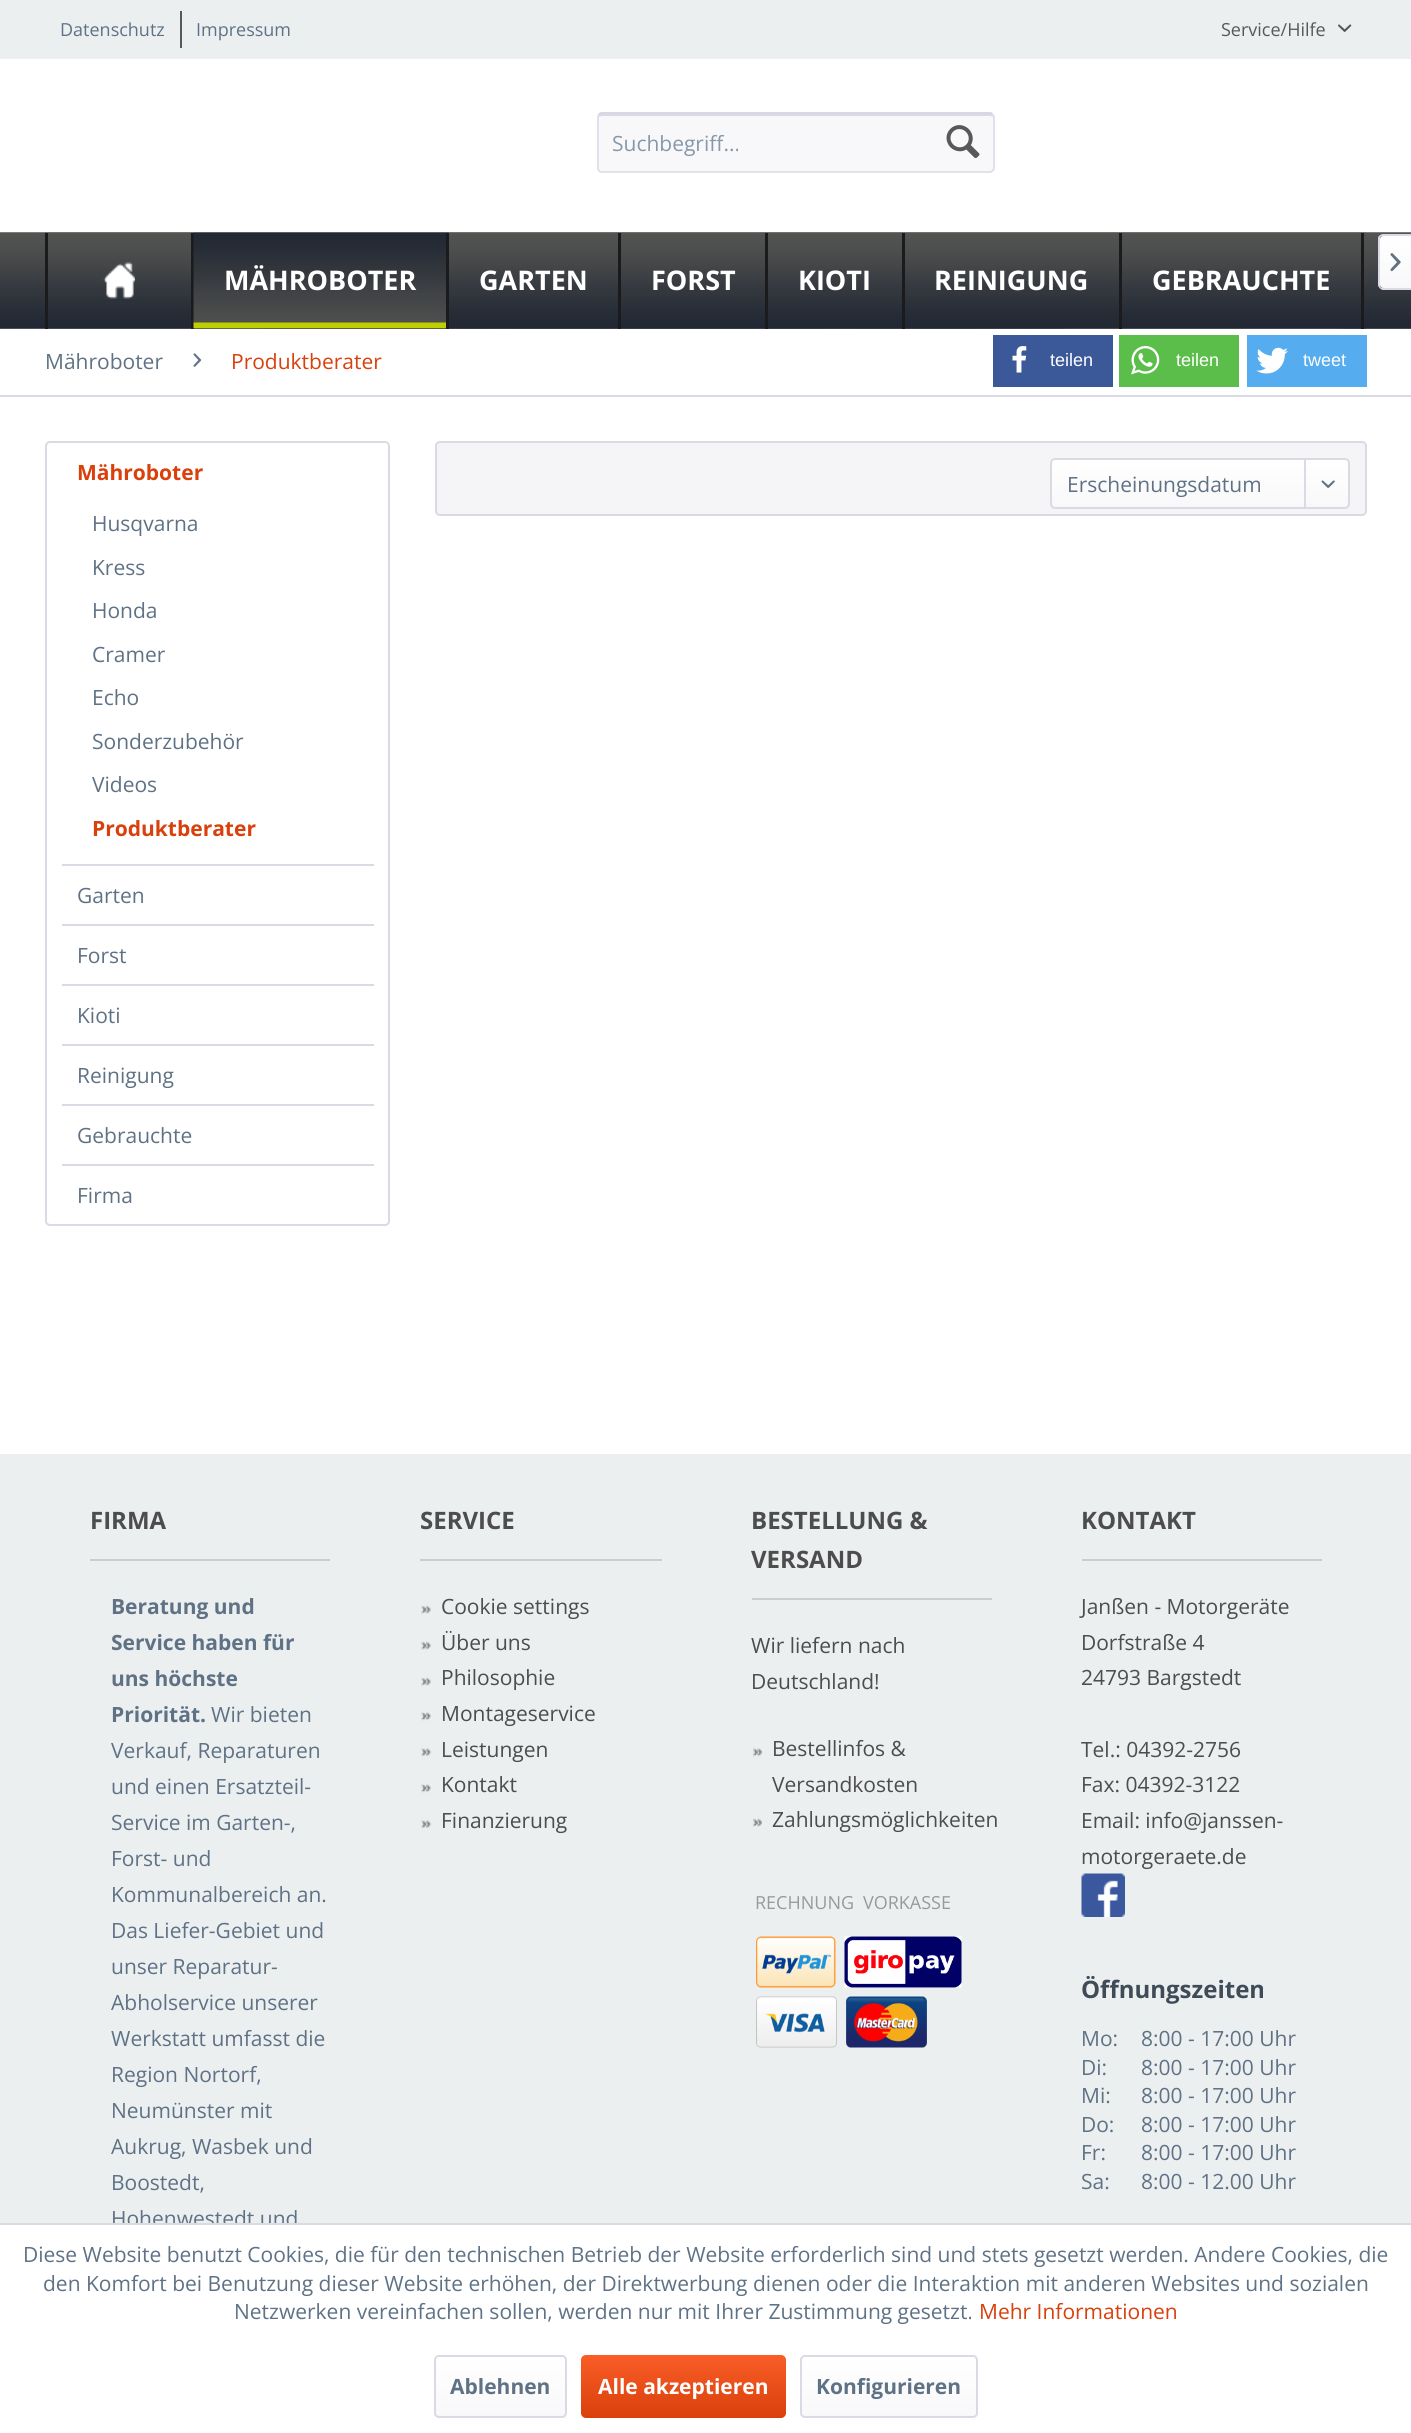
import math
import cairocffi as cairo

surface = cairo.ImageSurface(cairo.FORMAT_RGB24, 1411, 2433)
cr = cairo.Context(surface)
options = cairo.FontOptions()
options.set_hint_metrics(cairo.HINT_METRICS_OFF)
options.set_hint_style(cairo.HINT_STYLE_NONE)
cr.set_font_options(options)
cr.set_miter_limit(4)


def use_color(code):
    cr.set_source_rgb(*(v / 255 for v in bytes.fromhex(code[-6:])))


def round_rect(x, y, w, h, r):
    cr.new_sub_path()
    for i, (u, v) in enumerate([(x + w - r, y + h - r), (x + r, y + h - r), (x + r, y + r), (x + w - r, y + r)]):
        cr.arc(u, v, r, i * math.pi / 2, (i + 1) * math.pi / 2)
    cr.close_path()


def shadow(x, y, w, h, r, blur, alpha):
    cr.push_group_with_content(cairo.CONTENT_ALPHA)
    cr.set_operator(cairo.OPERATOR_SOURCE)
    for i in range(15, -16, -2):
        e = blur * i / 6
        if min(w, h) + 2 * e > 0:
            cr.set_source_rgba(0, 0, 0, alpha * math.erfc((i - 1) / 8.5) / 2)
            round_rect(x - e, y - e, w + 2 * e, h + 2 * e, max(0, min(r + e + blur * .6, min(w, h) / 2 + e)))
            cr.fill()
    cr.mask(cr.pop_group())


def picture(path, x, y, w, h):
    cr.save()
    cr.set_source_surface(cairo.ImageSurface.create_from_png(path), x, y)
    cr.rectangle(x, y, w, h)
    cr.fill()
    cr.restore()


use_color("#ffffff")
cr.paint()
picture("img1.png", 0, 328, 1411, 1)
use_color("#ebeff0")
cr.rectangle(0, 0, 1411, 59)
cr.fill()
cr.select_font_face("Open Sans")
cr.set_font_size(18)
use_color("#5f7285")
cr.move_to(60, 36)
cr.show_text("Datenschutz")
use_color("#585858")
cr.rectangle(180, 11, 2, 37)
cr.fill()
use_color("#5f7285")
cr.move_to(196, 36)
cr.show_text("Impressum")
use_color("#585858")
cr.move_to(1221, 36)
cr.show_text("Service/Hilfe")
picture("img2.png", 1338, 24, 14, 8)
use_color("#f8f8fa")
round_rect(597, 113, 398, 60, 5)
cr.fill()
use_color("#dadae5")
cr.new_path()
cr.move_to(602, 116)
cr.line_to(990, 116)
cr.curve_to(992, 116, 993, 117, 993, 118)
cr.curve_to(993, 116, 992, 114, 990, 114)
cr.line_to(602, 114)
cr.curve_to(600, 114, 599, 115, 599, 117)
cr.close_path()
cr.fill()
cr.new_path()
cr.move_to(599, 114.5)
cr.curve_to(599.5, 113.5, 600.5, 113, 601.5, 113)
cr.line_to(990, 113)
cr.curve_to(991, 113, 992, 113.5, 992.5, 114.5)
use_color("#cbcbdb")
cr.set_line_width(1.5)
cr.stroke()
cr.new_path()
cr.move_to(992.5, 114.5)
cr.curve_to(993.5, 115, 994, 116, 994, 117)
cr.line_to(994, 168)
cr.curve_to(994, 169, 993.5, 170, 992.5, 170.5)
cr.curve_to(992, 171.5, 991, 172, 990, 172)
cr.line_to(601.5, 172)
cr.curve_to(600.5, 172, 599.5, 171.5, 599, 170.5)
cr.curve_to(598, 170, 598, 169, 598, 168)
cr.line_to(598, 117)
cr.curve_to(598, 116, 598, 115, 599, 114.5)
use_color("#dadae5")
cr.stroke()
cr.set_font_size(21)
use_color("#8798a9")
cr.move_to(612, 151)
cr.show_text("Suchbegriff...")
picture("img3.png", 946, 125, 34, 33)
use_color("#dadae5")
shadow(-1, 327, 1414, 1128, 0, 3, 1)
picture("img4.png", 0, 232, 1411, 97)
picture("img5.png", 0, 232, 1411, 97)
picture("img6.png", 45, 232, 1321, 97)
use_color("#1b1b1d")
cr.rectangle(191, 233, 3, 96)
cr.fill()
cr.rectangle(45, 233, 3, 96)
cr.fill()
picture("img7.png", 103, 262, 32, 37)
picture("img8.png", 193, 232, 256, 97)
cr.rectangle(446, 233, 3, 96)
cr.fill()
cr.select_font_face("Open Sans", cairo.FONT_SLANT_NORMAL, cairo.FONT_WEIGHT_BOLD)
cr.set_font_size(27)
use_color("#ffffff")
cr.move_to(224, 290)
cr.show_text("MÄHROBOTER")
use_color("#1b1b1d")
cr.rectangle(618, 233, 3, 96)
cr.fill()
use_color("#ffffff")
cr.move_to(479, 290)
cr.show_text("GARTEN")
use_color("#1b1b1d")
cr.rectangle(765, 233, 3, 96)
cr.fill()
use_color("#ffffff")
cr.move_to(651, 290)
cr.show_text("FORST")
use_color("#1b1b1d")
cr.rectangle(902, 233, 3, 96)
cr.fill()
use_color("#ffffff")
cr.move_to(798, 290)
cr.show_text("KIOTI")
use_color("#1b1b1d")
cr.rectangle(1119, 233, 3, 96)
cr.fill()
use_color("#ffffff")
cr.move_to(934, 290)
cr.show_text("REINIGUNG")
use_color("#1b1b1d")
cr.rectangle(1361, 233, 3, 96)
cr.fill()
use_color("#ffffff")
cr.move_to(1152, 290)
cr.show_text("GEBRAUCHTE")
gradient = cairo.LinearGradient(1396, 236, 1396, 288)
gradient.add_color_stop_rgba(0, 1, 1, 1, 1)
gradient.add_color_stop_rgba(1, 0.973, 0.973, 0.98, 1)
cr.set_source(gradient)
cr.new_path()
cr.move_to(1383, 236)
cr.line_to(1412, 236)
cr.line_to(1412, 288)
cr.line_to(1383, 288)
cr.curve_to(1381.5, 288, 1380, 286.5, 1380, 285)
cr.line_to(1380, 239)
cr.curve_to(1380, 237.5, 1381.5, 236, 1383, 236)
cr.close_path()
cr.fill()
use_color("#dadae5")
cr.set_fill_rule(cairo.FILL_RULE_EVEN_ODD)
cr.new_path()
cr.move_to(1383, 234)
cr.line_to(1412, 234)
cr.line_to(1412, 290)
cr.line_to(1383, 290)
cr.curve_to(1381, 290, 1378, 287, 1378, 285)
cr.line_to(1378, 238)
cr.curve_to(1378, 236, 1381, 234, 1383, 234)
cr.close_path()
cr.move_to(1383, 236)
cr.line_to(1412, 236)
cr.line_to(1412, 288)
cr.line_to(1383, 288)
cr.curve_to(1381, 288, 1380, 287, 1380, 285)
cr.line_to(1380, 238)
cr.curve_to(1380, 237, 1381, 236, 1383, 236)
cr.close_path()
cr.fill()
picture("img9.png", 1390, 253, 11, 19)
use_color("#ffffff")
cr.rectangle(0, 329, 1411, 1125)
cr.fill()
use_color("#dadae5")
cr.rectangle(0, 395, 1411, 2)
cr.fill()
cr.select_font_face("Open Sans")
cr.set_font_size(21)
use_color("#5f7285")
cr.move_to(45, 369)
cr.show_text("Mähroboter")
picture("img10.png", 193, 353, 9, 14)
use_color("#d9400b")
cr.move_to(231, 369)
cr.show_text("Produktberater")
use_color("#3b5998")
cr.rectangle(993, 335, 120, 52)
cr.fill()
picture("img11.png", 1012, 346, 15, 27)
cr.select_font_face("Liberation Sans")
cr.set_font_size(18)
use_color("#ffffff")
cr.move_to(1050, 366)
cr.show_text("teilen")
use_color("#5cbe4a")
cr.rectangle(1119, 335, 120, 52)
cr.fill()
picture("img12.png", 1131, 346, 29, 29)
use_color("#ffffff")
cr.move_to(1176, 366)
cr.show_text("teilen")
use_color("#55acee")
cr.rectangle(1247, 335, 120, 52)
cr.fill()
picture("img13.png", 1256, 347, 32, 27)
use_color("#ffffff")
cr.move_to(1303, 366)
cr.show_text("tweet")
round_rect(46, 442, 343, 783, 4)
use_color("#dadae5")
cr.set_line_width(2)
cr.stroke()
cr.rectangle(62, 864, 312, 2)
cr.fill()
cr.select_font_face("Open Sans", cairo.FONT_SLANT_NORMAL, cairo.FONT_WEIGHT_BOLD)
cr.set_font_size(21)
use_color("#d9400b")
cr.move_to(77, 480)
cr.show_text("Mähroboter")
cr.select_font_face("Open Sans")
use_color("#5f7285")
cr.move_to(92, 531)
cr.show_text("Husqvarna")
cr.move_to(92, 575)
cr.show_text("Kress")
cr.move_to(92, 618)
cr.show_text("Honda")
cr.move_to(92, 662)
cr.show_text("Cramer")
cr.move_to(92, 705)
cr.show_text("Echo")
cr.move_to(92, 749)
cr.show_text("Sonderzubehör")
cr.move_to(92, 792)
cr.show_text("Videos")
cr.select_font_face("Open Sans", cairo.FONT_SLANT_NORMAL, cairo.FONT_WEIGHT_BOLD)
use_color("#d9400b")
cr.move_to(92, 836)
cr.show_text("Produktberater")
use_color("#dadae5")
cr.rectangle(62, 924, 312, 2)
cr.fill()
cr.select_font_face("Open Sans")
use_color("#5f7285")
cr.move_to(77, 903)
cr.show_text("Garten")
use_color("#dadae5")
cr.rectangle(62, 984, 312, 2)
cr.fill()
use_color("#5f7285")
cr.move_to(77, 963)
cr.show_text("Forst")
use_color("#dadae5")
cr.rectangle(62, 1044, 312, 2)
cr.fill()
use_color("#5f7285")
cr.move_to(77, 1023)
cr.show_text("Kioti")
use_color("#dadae5")
cr.rectangle(62, 1104, 312, 2)
cr.fill()
use_color("#5f7285")
cr.move_to(77, 1083)
cr.show_text("Reinigung")
use_color("#dadae5")
cr.rectangle(62, 1164, 312, 2)
cr.fill()
use_color("#5f7285")
cr.move_to(77, 1143)
cr.show_text("Gebrauchte")
cr.move_to(77, 1203)
cr.show_text("Firma")
use_color("#f5f5f8")
round_rect(436, 442, 930, 73, 4)
cr.fill_preserve()
use_color("#dadae5")
cr.stroke()
gradient = cairo.LinearGradient(1200, 459, 1200, 507)
gradient.add_color_stop_rgba(0, 1, 1, 1, 1)
gradient.add_color_stop_rgba(1, 0.973, 0.973, 0.98, 1)
cr.set_source(gradient)
round_rect(1052, 459, 297, 48, 3)
cr.fill()
round_rect(1051, 459, 298, 49, 4)
use_color("#dadae5")
cr.stroke()
use_color("#5f7285")
cr.move_to(1067, 492)
cr.show_text("Erscheinungsdatum")
use_color("#dadae5")
cr.rectangle(1304, 459, 2, 50)
cr.fill()
picture("img14.png", 1321, 480, 14, 8)
use_color("#eceff0")
cr.rectangle(0, 1454, 1411, 769)
cr.fill()
use_color("#cdcdcd")
cr.rectangle(90, 1559, 240, 2)
cr.fill()
cr.select_font_face("Open Sans", cairo.FONT_SLANT_NORMAL, cairo.FONT_WEIGHT_BOLD)
cr.set_font_size(24)
use_color("#4d4d4d")
cr.move_to(90, 1529)
cr.show_text("FIRMA")
cr.set_font_size(21)
use_color("#5f7285")
cr.move_to(111, 1614)
cr.show_text("Beratung und")
cr.move_to(111, 1650)
cr.show_text("Service haben für")
cr.move_to(111, 1686)
cr.show_text("uns höchste")
cr.move_to(111, 1722)
cr.show_text("Priorität.")
cr.select_font_face("Open Sans")
cr.move_to(211, 1722)
cr.show_text("Wir bieten")
cr.move_to(111, 1758)
cr.show_text("Verkauf, Reparaturen")
cr.move_to(111, 1794)
cr.show_text("und einen Ersatzteil-")
cr.move_to(111, 1830)
cr.show_text("Service im Garten-,")
cr.move_to(111, 1866)
cr.show_text("Forst- und")
cr.move_to(111, 1902)
cr.show_text("Kommunalbereich an.")
cr.move_to(111, 1938)
cr.show_text("Das Liefer-Gebiet und")
cr.move_to(111, 1974)
cr.show_text("unser Reparatur-")
cr.move_to(111, 2010)
cr.show_text("Abholservice unserer")
cr.move_to(111, 2046)
cr.show_text("Werkstatt umfasst die")
cr.move_to(111, 2082)
cr.show_text("Region Nortorf,")
cr.move_to(111, 2118)
cr.show_text("Neumünster mit")
cr.move_to(111, 2154)
cr.show_text("Aukrug, Wasbek und")
cr.move_to(111, 2190)
cr.show_text("Boostedt,")
cr.move_to(111, 2226)
cr.show_text("Hohenwestedt und")
use_color("#cdcdcd")
cr.rectangle(420, 1559, 242, 2)
cr.fill()
cr.select_font_face("Open Sans", cairo.FONT_SLANT_NORMAL, cairo.FONT_WEIGHT_BOLD)
cr.set_font_size(24)
use_color("#4d4d4d")
cr.move_to(420, 1529)
cr.show_text("SERVICE")
picture("img15.png", 421, 1605, 10, 9)
cr.select_font_face("Open Sans")
cr.set_font_size(21)
cr.move_to(441, 1614)
cr.show_text("Cookie settings")
picture("img15.png", 421, 1641, 10, 9)
cr.move_to(441, 1650)
cr.show_text("Über uns")
picture("img15.png", 421, 1677, 10, 9)
cr.move_to(441, 1685)
cr.show_text("Philosophie")
picture("img16.png", 421, 1711, 10, 10)
cr.move_to(441, 1721)
cr.show_text("Montageservice")
picture("img16.png", 421, 1747, 10, 10)
cr.move_to(441, 1757)
cr.show_text("Leistungen")
picture("img16.png", 421, 1783, 10, 10)
cr.move_to(441, 1792)
cr.show_text("Kontakt")
picture("img16.png", 421, 1819, 10, 10)
cr.move_to(441, 1828)
cr.show_text("Finanzierung")
use_color("#cdcdcd")
cr.rectangle(752, 1598, 240, 2)
cr.fill()
cr.select_font_face("Open Sans", cairo.FONT_SLANT_NORMAL, cairo.FONT_WEIGHT_BOLD)
cr.set_font_size(24)
use_color("#4d4d4d")
cr.move_to(751, 1529)
cr.show_text("BESTELLUNG &")
cr.move_to(751, 1568)
cr.show_text("VERSAND")
cr.select_font_face("Open Sans")
cr.set_font_size(21)
cr.move_to(751, 1653)
cr.show_text("Wir liefern nach")
cr.move_to(751, 1689)
cr.show_text("Deutschland!")
picture("img17.png", 753, 1747, 9, 10)
cr.move_to(772, 1756)
cr.show_text("Bestellinfos &")
cr.move_to(772, 1792)
cr.show_text("Versandkosten")
picture("img18.png", 753, 1818, 9, 9)
cr.move_to(772, 1827)
cr.show_text("Zahlungsmöglichkeiten")
cr.set_font_size(18)
use_color("#999999")
cr.move_to(755, 1909)
cr.show_text("RECHNUNG")
cr.move_to(863, 1909)
cr.show_text("VORKASSE")
picture("img19.png", 756, 1936, 80, 52)
picture("img20.png", 844, 1936, 118, 52)
picture("img21.png", 756, 1996, 81, 52)
picture("img22.png", 846, 1996, 81, 52)
use_color("#cdcdcd")
cr.rectangle(1082, 1559, 240, 2)
cr.fill()
cr.select_font_face("Open Sans", cairo.FONT_SLANT_NORMAL, cairo.FONT_WEIGHT_BOLD)
cr.set_font_size(24)
use_color("#4d4d4d")
cr.move_to(1081, 1529)
cr.show_text("KONTAKT")
cr.select_font_face("Open Sans")
cr.set_font_size(21)
cr.move_to(1081, 1614)
cr.show_text("Janßen - Motorgeräte")
cr.move_to(1081, 1650)
cr.show_text("Dorfstraße 4")
cr.move_to(1081, 1685)
cr.show_text("24793 Bargstedt")
cr.move_to(1081, 1757)
cr.show_text("Tel.: 04392-2756")
cr.move_to(1081, 1792)
cr.show_text("Fax: 04392-3122")
cr.move_to(1081, 1828)
cr.show_text("Email: info@janssen-")
cr.move_to(1081, 1864)
cr.show_text("motorgeraete.de")
picture("img23.png", 1081, 1873, 44, 44)
cr.select_font_face("Open Sans", cairo.FONT_SLANT_NORMAL, cairo.FONT_WEIGHT_BOLD)
cr.set_font_size(24)
use_color("#3f4c58")
cr.move_to(1081, 1998)
cr.show_text("Öffnungszeiten")
cr.select_font_face("Open Sans")
cr.set_font_size(21)
use_color("#5f7285")
cr.move_to(1081, 2046)
cr.show_text("Mo:")
cr.move_to(1141, 2046)
cr.show_text("8:00 - 17:00 Uhr")
cr.move_to(1081, 2075)
cr.show_text("Di:")
cr.move_to(1141, 2075)
cr.show_text("8:00 - 17:00 Uhr")
cr.move_to(1081, 2103)
cr.show_text("Mi:")
cr.move_to(1141, 2103)
cr.show_text("8:00 - 17:00 Uhr")
cr.move_to(1081, 2132)
cr.show_text("Do:")
cr.move_to(1141, 2132)
cr.show_text("8:00 - 17:00 Uhr")
cr.move_to(1081, 2160)
cr.show_text("Fr:")
cr.move_to(1141, 2160)
cr.show_text("8:00 - 17:00 Uhr")
cr.move_to(1081, 2189)
cr.show_text("Sa:")
cr.move_to(1141, 2189)
cr.show_text("8:00 - 12.00 Uhr")
use_color("#ffffff")
cr.rectangle(113, 2225, 184, 2)
cr.fill()
use_color("#dadae5")
cr.rectangle(0, 2223, 1411, 2)
cr.fill()
use_color("#5f7285")
cr.move_to(23, 2262)
cr.show_text("Diese Website benutzt Cookies, die für den technischen Betrieb der Website erforderlich sind und stets gesetzt werden. Andere Cookies, die")
cr.move_to(43, 2291)
cr.show_text("den Komfort bei Benutzung dieser Website erhöhen, der Direktwerbung dienen oder die Interaktion mit anderen Websites und sozialen")
cr.move_to(234, 2319)
cr.show_text("Netzwerken vereinfachen sollen, werden nur mit Ihrer Zustimmung gesetzt.")
use_color("#d9400b")
cr.move_to(979, 2319)
cr.show_text("Mehr Informationen")
gradient = cairo.LinearGradient(500, 2357, 500, 2417)
gradient.add_color_stop_rgba(0, 1, 1, 1, 1)
gradient.add_color_stop_rgba(1, 0.973, 0.973, 0.98, 1)
cr.set_source(gradient)
round_rect(435, 2357, 131, 60, 3)
cr.fill()
round_rect(435, 2356, 131, 61, 4)
use_color("#dadae5")
cr.stroke()
cr.select_font_face("Open Sans", cairo.FONT_SLANT_NORMAL, cairo.FONT_WEIGHT_BOLD)
use_color("#5f7285")
cr.move_to(450, 2394)
cr.show_text("Ablehnen")
gradient = cairo.LinearGradient(683, 2355, 683, 2418)
gradient.add_color_stop_rgba(0, 0.98, 0.365, 0.153, 1)
gradient.add_color_stop_rgba(1, 0.851, 0.251, 0.043, 1)
cr.set_source(gradient)
round_rect(581, 2355, 205, 63, 5)
cr.fill()
use_color("#ffffff")
cr.move_to(598, 2394)
cr.show_text("Alle akzeptieren")
gradient = cairo.LinearGradient(889, 2357, 889, 2417)
gradient.add_color_stop_rgba(0, 1, 1, 1, 1)
gradient.add_color_stop_rgba(1, 0.973, 0.973, 0.98, 1)
cr.set_source(gradient)
round_rect(801, 2357, 176, 60, 3)
cr.fill()
round_rect(801, 2356, 176, 61, 4)
use_color("#dadae5")
cr.stroke()
use_color("#5f7285")
cr.move_to(816, 2394)
cr.show_text("Konfigurieren")
surface.write_to_png("result.png")
